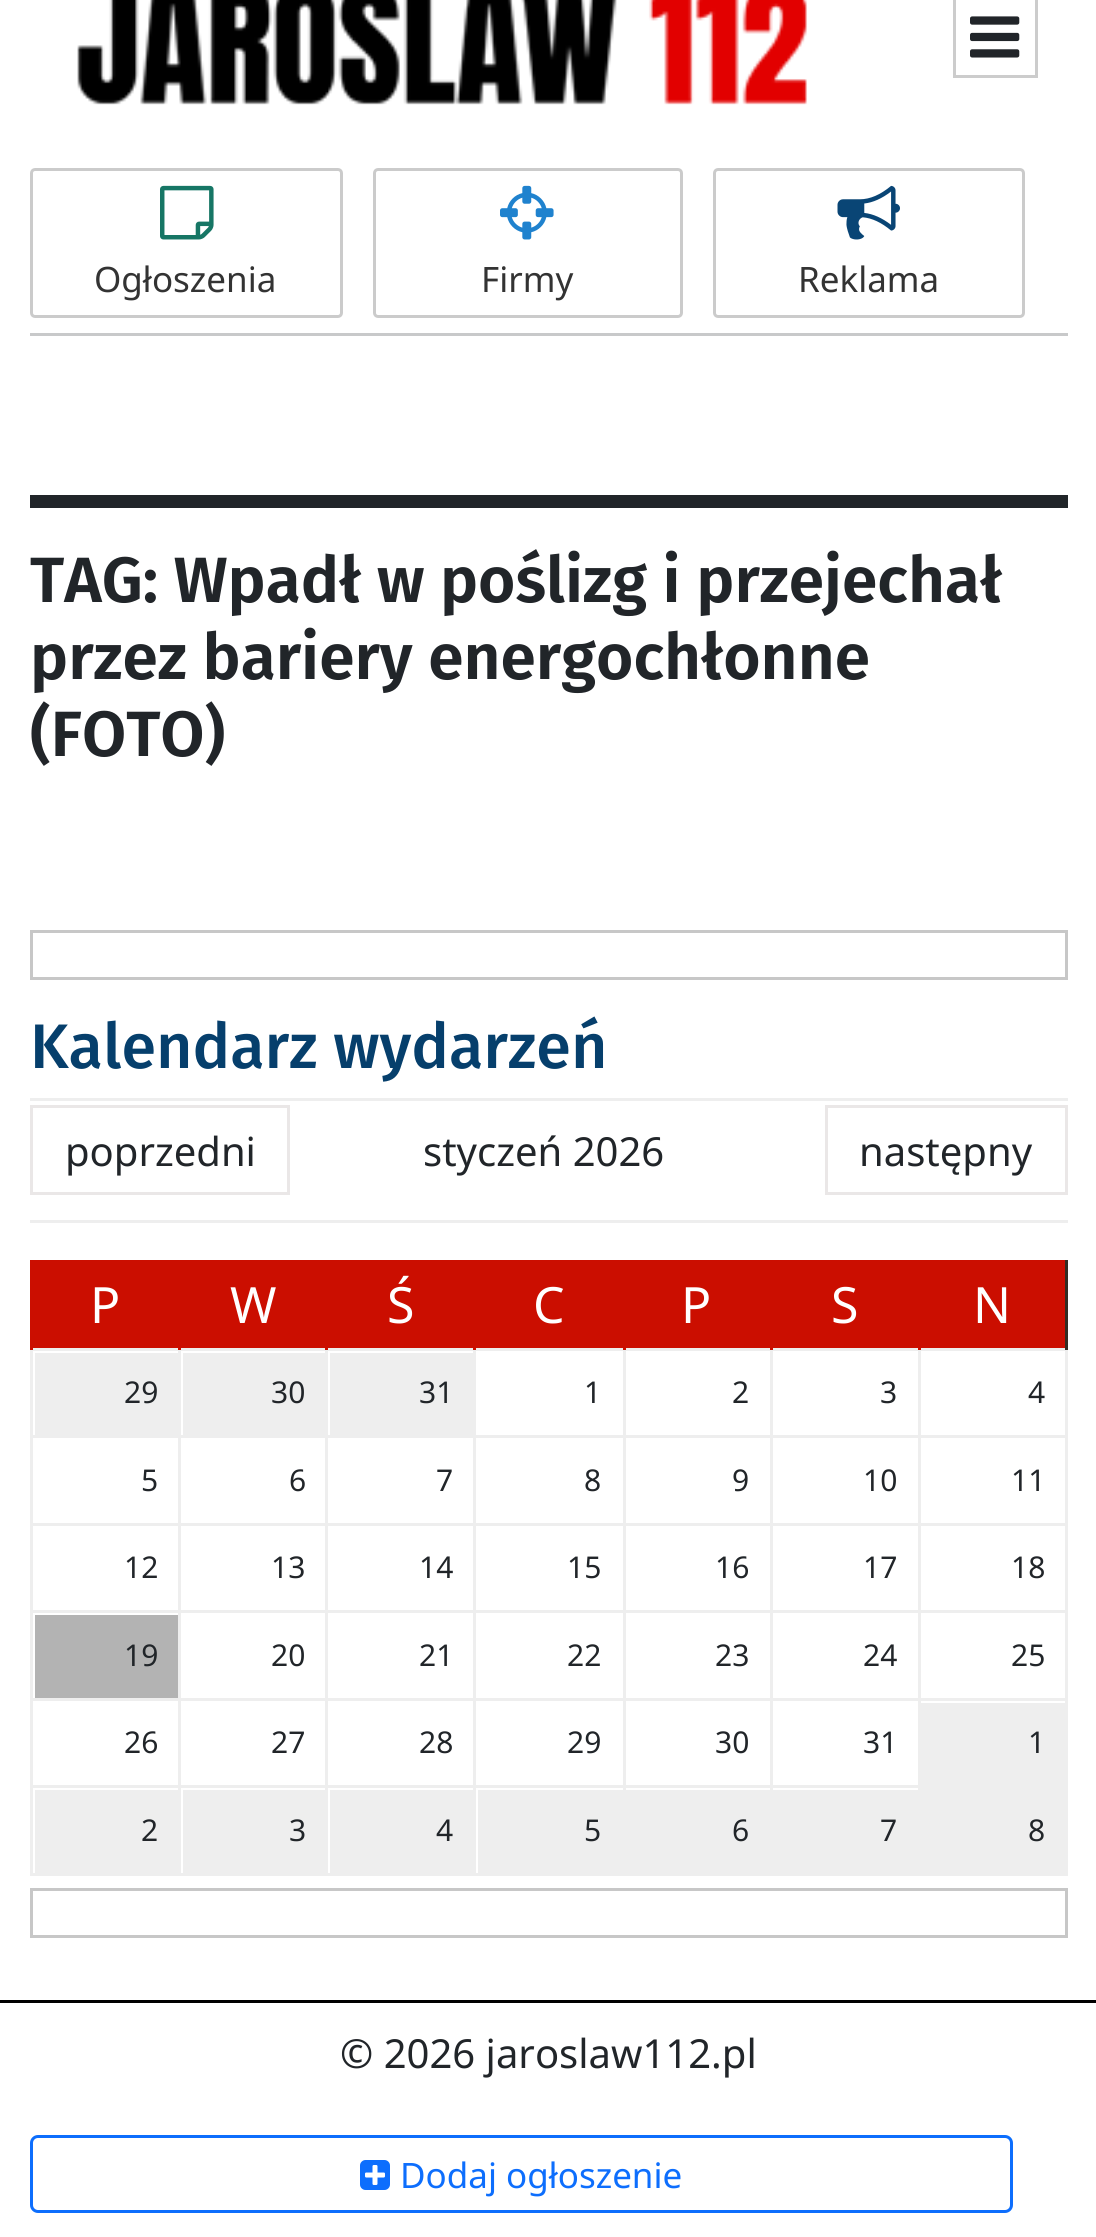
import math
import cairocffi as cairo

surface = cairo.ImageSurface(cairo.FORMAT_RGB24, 1096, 2237)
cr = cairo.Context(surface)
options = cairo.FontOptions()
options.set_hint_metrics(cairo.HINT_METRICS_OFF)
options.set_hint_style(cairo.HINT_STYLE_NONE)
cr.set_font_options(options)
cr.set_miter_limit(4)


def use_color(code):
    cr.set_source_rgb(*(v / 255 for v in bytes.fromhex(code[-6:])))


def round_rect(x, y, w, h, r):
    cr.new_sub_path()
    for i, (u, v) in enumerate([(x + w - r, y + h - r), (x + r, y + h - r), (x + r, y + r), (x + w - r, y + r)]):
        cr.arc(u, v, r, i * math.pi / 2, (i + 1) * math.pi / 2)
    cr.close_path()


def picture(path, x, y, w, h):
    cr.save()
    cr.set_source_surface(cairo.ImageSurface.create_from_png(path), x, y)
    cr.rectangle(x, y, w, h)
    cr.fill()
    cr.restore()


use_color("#ffffff")
cr.paint()
picture("img1.png", 77, 0, 730, 105)
cr.rectangle(954.5, -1.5, 82, 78)
use_color("#cccccc")
cr.set_line_width(3)
cr.stroke()
picture("img2.png", 970, 16, 50, 42)
round_rect(31.5, 169.5, 310, 147, 3.5)
use_color("#cbcbcb")
cr.stroke()
picture("img3.png", 160, 185, 54, 55)
cr.select_font_face("Noto Sans")
cr.set_font_size(35)
use_color("#333333")
cr.move_to(94, 292)
cr.show_text("Ogłoszenia")
round_rect(374.5, 169.5, 307, 147, 3.5)
use_color("#cbcbcb")
cr.stroke()
picture("img4.png", 500, 185, 54, 55)
use_color("#333333")
cr.move_to(481, 292)
cr.show_text("Firmy")
round_rect(714.5, 169.5, 309, 147, 3.5)
use_color("#cbcbcb")
cr.stroke()
picture("img5.png", 837, 185, 63, 55)
use_color("#333333")
cr.move_to(798, 292)
cr.show_text("Reklama")
use_color("#c8c9ca")
cr.rectangle(30, 333, 1038, 3)
cr.fill()
use_color("#212529")
cr.rectangle(30, 495, 1038, 13)
cr.fill()
cr.select_font_face("Fira Sans SemiBold")
cr.set_font_size(64)
cr.move_to(30, 602)
cr.show_text("TAG: Wpadł w poślizg i przejechał")
cr.move_to(30, 679)
cr.show_text("przez bariery energochłonne")
cr.move_to(30, 756)
cr.show_text("(FOTO)")
cr.rectangle(31.5, 931.5, 1035, 47)
use_color("#c7c7c7")
cr.stroke()
use_color("#eeeeee")
cr.rectangle(30, 1098, 1038, 3)
cr.fill()
cr.select_font_face("Fira Sans Medium")
cr.set_font_size(62.9)
use_color("#063f6c")
cr.move_to(30, 1068)
cr.show_text("Kalendarz wydarzeń")
use_color("#eeeeee")
cr.rectangle(30, 1220, 1038, 3)
cr.fill()
cr.rectangle(31.5, 1106.5, 257, 87)
use_color("#eae7e7")
cr.stroke()
cr.select_font_face("Noto Sans")
cr.set_font_size(40)
use_color("#212529")
cr.move_to(65, 1166)
cr.show_text("poprzedni")
cr.move_to(423, 1166)
cr.show_text("styczeń 2026")
cr.rectangle(826.5, 1106.5, 240, 87)
use_color("#eae7e7")
cr.stroke()
use_color("#212529")
cr.move_to(859, 1166)
cr.show_text("następny")
use_color("#cb0e00")
cr.rectangle(33, 1263, 1032, 85)
cr.fill()
cr.rectangle(30, 1260, 1038, 3)
cr.fill()
use_color("#eeeeee")
cr.rectangle(918, 1348, 150, 3)
cr.fill()
cr.rectangle(918, 1435, 150, 3)
cr.fill()
cr.rectangle(918, 1523, 150, 3)
cr.fill()
cr.rectangle(918, 1610, 150, 3)
cr.fill()
cr.rectangle(918, 1698, 150, 3)
cr.fill()
cr.rectangle(918, 1785, 150, 91)
cr.fill()
cr.rectangle(770, 1785, 150, 3)
cr.fill()
cr.rectangle(918, 1698, 3, 90)
cr.fill()
cr.rectangle(770, 1698, 150, 3)
cr.fill()
cr.rectangle(918, 1610, 3, 90)
cr.fill()
cr.rectangle(770, 1610, 150, 3)
cr.fill()
cr.rectangle(918, 1523, 3, 90)
cr.fill()
cr.rectangle(770, 1523, 150, 3)
cr.fill()
cr.rectangle(918, 1435, 3, 90)
cr.fill()
cr.rectangle(770, 1435, 150, 3)
cr.fill()
cr.rectangle(918, 1348, 3, 90)
cr.fill()
cr.rectangle(770, 1348, 150, 3)
cr.fill()
cr.rectangle(770, 1873, 150, 3)
cr.fill()
cr.rectangle(770, 1785, 3, 90)
cr.fill()
cr.rectangle(623, 1785, 150, 3)
cr.fill()
cr.rectangle(770, 1698, 3, 90)
cr.fill()
cr.rectangle(623, 1698, 150, 3)
cr.fill()
cr.rectangle(770, 1610, 3, 90)
cr.fill()
cr.rectangle(623, 1610, 150, 3)
cr.fill()
cr.rectangle(770, 1523, 3, 90)
cr.fill()
cr.rectangle(623, 1523, 150, 3)
cr.fill()
cr.rectangle(770, 1435, 3, 90)
cr.fill()
cr.rectangle(623, 1435, 150, 3)
cr.fill()
cr.rectangle(770, 1348, 3, 90)
cr.fill()
cr.rectangle(623, 1348, 150, 3)
cr.fill()
cr.rectangle(623, 1873, 150, 3)
cr.fill()
cr.rectangle(623, 1785, 3, 90)
cr.fill()
cr.rectangle(473, 1785, 152, 3)
cr.fill()
cr.rectangle(623, 1698, 3, 90)
cr.fill()
cr.rectangle(473, 1698, 152, 3)
cr.fill()
cr.rectangle(623, 1610, 3, 90)
cr.fill()
cr.rectangle(473, 1610, 152, 3)
cr.fill()
cr.rectangle(623, 1523, 3, 90)
cr.fill()
cr.rectangle(473, 1523, 152, 3)
cr.fill()
cr.rectangle(623, 1435, 3, 90)
cr.fill()
cr.rectangle(473, 1435, 152, 3)
cr.fill()
cr.rectangle(623, 1348, 3, 90)
cr.fill()
cr.rectangle(473, 1348, 152, 3)
cr.fill()
cr.rectangle(473, 1873, 152, 3)
cr.fill()
cr.rectangle(473, 1785, 3, 90)
cr.fill()
cr.rectangle(325, 1785, 150, 3)
cr.fill()
cr.rectangle(473, 1698, 3, 90)
cr.fill()
cr.rectangle(325, 1698, 150, 3)
cr.fill()
cr.rectangle(473, 1610, 3, 90)
cr.fill()
cr.rectangle(325, 1610, 150, 3)
cr.fill()
cr.rectangle(473, 1523, 3, 90)
cr.fill()
cr.rectangle(325, 1523, 150, 3)
cr.fill()
cr.rectangle(473, 1435, 3, 90)
cr.fill()
cr.rectangle(325, 1435, 150, 3)
cr.fill()
cr.rectangle(473, 1348, 3, 90)
cr.fill()
cr.rectangle(325, 1348, 150, 3)
cr.fill()
cr.rectangle(325, 1873, 150, 3)
cr.fill()
cr.rectangle(325, 1785, 3, 90)
cr.fill()
cr.rectangle(178, 1785, 150, 3)
cr.fill()
cr.rectangle(325, 1698, 3, 90)
cr.fill()
cr.rectangle(178, 1698, 150, 3)
cr.fill()
cr.rectangle(325, 1610, 3, 90)
cr.fill()
cr.rectangle(178, 1610, 150, 3)
cr.fill()
cr.rectangle(325, 1523, 3, 90)
cr.fill()
cr.rectangle(178, 1523, 150, 3)
cr.fill()
cr.rectangle(325, 1435, 3, 90)
cr.fill()
cr.rectangle(178, 1435, 150, 3)
cr.fill()
cr.rectangle(325, 1348, 3, 90)
cr.fill()
cr.rectangle(178, 1348, 150, 3)
cr.fill()
cr.rectangle(178, 1873, 150, 3)
cr.fill()
cr.rectangle(178, 1785, 3, 90)
cr.fill()
cr.rectangle(30, 1785, 150, 3)
cr.fill()
cr.rectangle(178, 1698, 3, 90)
cr.fill()
cr.rectangle(30, 1698, 150, 3)
cr.fill()
cr.rectangle(178, 1610, 3, 90)
cr.fill()
cr.rectangle(30, 1610, 150, 3)
cr.fill()
cr.rectangle(178, 1523, 3, 90)
cr.fill()
cr.rectangle(30, 1523, 150, 3)
cr.fill()
cr.rectangle(178, 1435, 3, 90)
cr.fill()
cr.rectangle(30, 1435, 150, 3)
cr.fill()
cr.rectangle(178, 1348, 3, 90)
cr.fill()
cr.rectangle(30, 1348, 150, 3)
cr.fill()
cr.rectangle(30, 1873, 150, 3)
cr.fill()
cr.rectangle(30, 1785, 3, 90)
cr.fill()
cr.rectangle(30, 1698, 3, 90)
cr.fill()
cr.rectangle(30, 1610, 3, 90)
cr.fill()
cr.rectangle(30, 1523, 3, 90)
cr.fill()
cr.rectangle(30, 1435, 3, 90)
cr.fill()
cr.rectangle(30, 1348, 3, 90)
cr.fill()
use_color("#cb0e00")
cr.rectangle(30, 1260, 3, 90)
cr.fill()
cr.set_font_size(50)
use_color("#ffffff")
cr.move_to(90, 1323)
cr.show_text("P")
use_color("#cb0e00")
cr.rectangle(178, 1348, 3, 2)
cr.fill()
use_color("#ffffff")
cr.move_to(230, 1323)
cr.show_text("W")
use_color("#cb0e00")
cr.rectangle(325, 1348, 3, 2)
cr.fill()
use_color("#ffffff")
cr.move_to(387, 1323)
cr.show_text("Ś")
use_color("#cb0e00")
cr.rectangle(473, 1348, 3, 2)
cr.fill()
use_color("#ffffff")
cr.move_to(533, 1323)
cr.show_text("C")
use_color("#cb0e00")
cr.rectangle(623, 1348, 3, 2)
cr.fill()
use_color("#ffffff")
cr.move_to(681, 1323)
cr.show_text("P")
use_color("#cb0e00")
cr.rectangle(770, 1348, 3, 2)
cr.fill()
use_color("#ffffff")
cr.move_to(831, 1323)
cr.show_text("S")
use_color("#eeeeee")
cr.rectangle(1065, 1698, 3, 90)
cr.fill()
cr.rectangle(1065, 1610, 3, 90)
cr.fill()
cr.rectangle(1065, 1523, 3, 90)
cr.fill()
cr.rectangle(1065, 1435, 3, 90)
cr.fill()
cr.rectangle(1065, 1348, 3, 90)
cr.fill()
use_color("#332c22")
cr.rectangle(1065, 1260, 3, 90)
cr.fill()
use_color("#cb0e00")
cr.rectangle(918, 1348, 3, 2)
cr.fill()
use_color("#ffffff")
cr.move_to(973, 1323)
cr.show_text("N")
use_color("#eeeeee")
cr.rectangle(35, 1353, 143, 82)
cr.fill()
cr.set_font_size(30)
use_color("#212529")
cr.move_to(124, 1403)
cr.show_text("29")
use_color("#eeeeee")
cr.rectangle(183, 1353, 142, 82)
cr.fill()
use_color("#212529")
cr.move_to(271, 1403)
cr.show_text("30")
use_color("#eeeeee")
cr.rectangle(330, 1353, 143, 82)
cr.fill()
use_color("#212529")
cr.move_to(419, 1403)
cr.show_text("31")
cr.move_to(584, 1403)
cr.show_text("1")
cr.move_to(732, 1403)
cr.show_text("2")
cr.move_to(880, 1403)
cr.show_text("3")
cr.move_to(1028, 1403)
cr.show_text("4")
cr.move_to(141, 1491)
cr.show_text("5")
cr.move_to(289, 1491)
cr.show_text("6")
cr.move_to(436, 1491)
cr.show_text("7")
cr.move_to(584, 1491)
cr.show_text("8")
cr.move_to(732, 1491)
cr.show_text("9")
cr.move_to(863, 1491)
cr.show_text("10")
cr.move_to(1011, 1491)
cr.show_text("11")
cr.move_to(124, 1578)
cr.show_text("12")
cr.move_to(271, 1578)
cr.show_text("13")
cr.move_to(419, 1578)
cr.show_text("14")
cr.move_to(567, 1578)
cr.show_text("15")
cr.move_to(715, 1578)
cr.show_text("16")
cr.move_to(863, 1578)
cr.show_text("17")
cr.move_to(1011, 1578)
cr.show_text("18")
use_color("#b3b3b3")
cr.rectangle(35, 1615, 143, 83)
cr.fill()
use_color("#212529")
cr.move_to(124, 1666)
cr.show_text("19")
cr.move_to(271, 1666)
cr.show_text("20")
cr.move_to(419, 1666)
cr.show_text("21")
cr.move_to(567, 1666)
cr.show_text("22")
cr.move_to(715, 1666)
cr.show_text("23")
cr.move_to(863, 1666)
cr.show_text("24")
cr.move_to(1011, 1666)
cr.show_text("25")
cr.move_to(124, 1753)
cr.show_text("26")
cr.move_to(271, 1753)
cr.show_text("27")
cr.move_to(419, 1753)
cr.show_text("28")
cr.move_to(567, 1753)
cr.show_text("29")
cr.move_to(715, 1753)
cr.show_text("30")
cr.move_to(863, 1753)
cr.show_text("31")
use_color("#eeeeee")
cr.rectangle(921, 1703, 144, 82)
cr.fill()
use_color("#212529")
cr.move_to(1028, 1753)
cr.show_text("1")
use_color("#eeeeee")
cr.rectangle(35, 1790, 143, 83)
cr.fill()
use_color("#212529")
cr.move_to(141, 1841)
cr.show_text("2")
use_color("#eeeeee")
cr.rectangle(183, 1790, 142, 83)
cr.fill()
use_color("#212529")
cr.move_to(289, 1841)
cr.show_text("3")
use_color("#eeeeee")
cr.rectangle(330, 1790, 143, 83)
cr.fill()
use_color("#212529")
cr.move_to(436, 1841)
cr.show_text("4")
use_color("#eeeeee")
cr.rectangle(478, 1790, 145, 83)
cr.fill()
use_color("#212529")
cr.move_to(584, 1841)
cr.show_text("5")
use_color("#eeeeee")
cr.rectangle(626, 1790, 144, 83)
cr.fill()
use_color("#212529")
cr.move_to(732, 1841)
cr.show_text("6")
use_color("#eeeeee")
cr.rectangle(773, 1790, 145, 83)
cr.fill()
use_color("#212529")
cr.move_to(880, 1841)
cr.show_text("7")
cr.move_to(1028, 1841)
cr.show_text("8")
cr.rectangle(31.5, 1889.5, 1035, 47)
use_color("#c7c7c7")
cr.stroke()
use_color("#000000")
cr.rectangle(0, 2000, 1096, 3)
cr.fill()
cr.set_font_size(40)
use_color("#212529")
cr.move_to(340, 2068)
cr.show_text("© 2026 jaroslaw112.pl")
round_rect(31.5, 2136.5, 980, 75, 6.5)
use_color("#0d6efd")
cr.stroke()
picture("img6.png", 360, 2160, 30, 30)
cr.set_font_size(35)
cr.move_to(400, 2188)
cr.show_text("Dodaj ogłoszenie")
surface.write_to_png("result.png")
